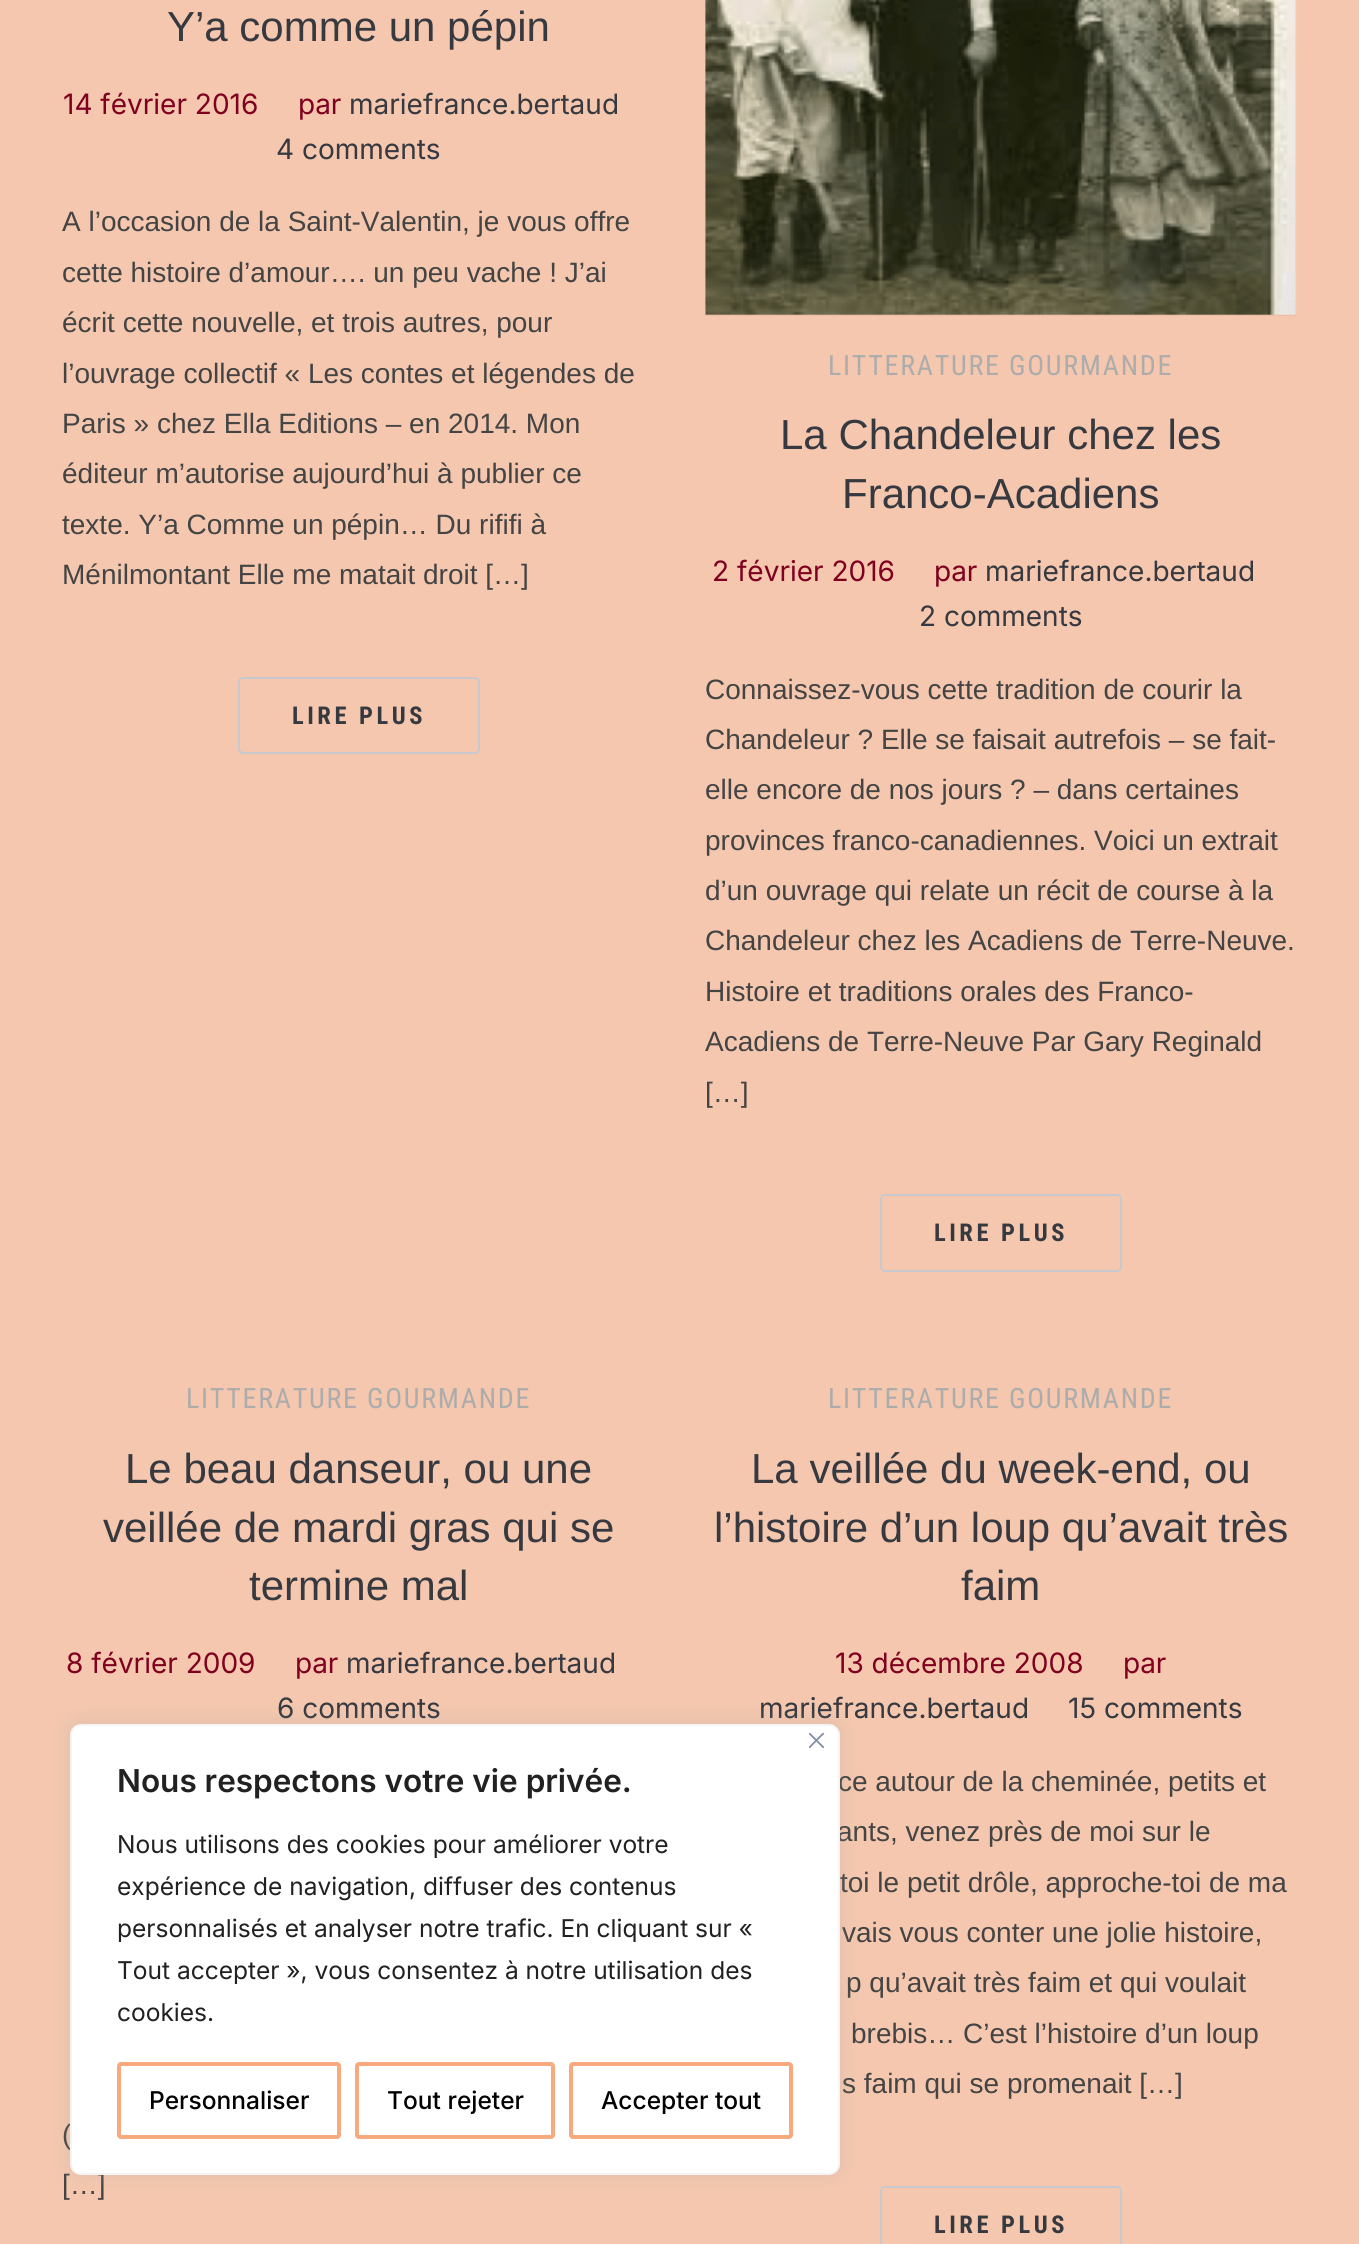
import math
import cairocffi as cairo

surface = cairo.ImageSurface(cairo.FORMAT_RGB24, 1359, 2244)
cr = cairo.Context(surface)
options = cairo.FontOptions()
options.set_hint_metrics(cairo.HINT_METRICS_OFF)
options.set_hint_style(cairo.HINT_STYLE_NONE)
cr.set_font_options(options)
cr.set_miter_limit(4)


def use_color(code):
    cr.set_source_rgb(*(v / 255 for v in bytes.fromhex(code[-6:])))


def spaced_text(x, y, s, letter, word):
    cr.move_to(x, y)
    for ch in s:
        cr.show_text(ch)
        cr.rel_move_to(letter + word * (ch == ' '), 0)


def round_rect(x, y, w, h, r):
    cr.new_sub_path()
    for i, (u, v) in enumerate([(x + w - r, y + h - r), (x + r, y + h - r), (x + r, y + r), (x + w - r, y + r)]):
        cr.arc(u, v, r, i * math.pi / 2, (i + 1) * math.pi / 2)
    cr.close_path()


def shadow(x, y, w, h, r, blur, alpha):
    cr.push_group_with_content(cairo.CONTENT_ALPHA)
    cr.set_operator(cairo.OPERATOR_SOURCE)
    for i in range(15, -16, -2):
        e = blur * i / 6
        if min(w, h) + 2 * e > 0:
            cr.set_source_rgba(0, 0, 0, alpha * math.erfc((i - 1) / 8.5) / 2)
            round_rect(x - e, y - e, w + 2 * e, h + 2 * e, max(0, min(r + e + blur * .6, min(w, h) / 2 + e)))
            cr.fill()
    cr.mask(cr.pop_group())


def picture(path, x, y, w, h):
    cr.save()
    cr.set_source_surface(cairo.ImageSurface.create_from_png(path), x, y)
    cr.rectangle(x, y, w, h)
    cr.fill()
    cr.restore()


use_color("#f4c7ae")
cr.paint()
cr.select_font_face("Liberation Sans")
cr.set_font_size(42)
use_color("#363940")
cr.move_to(167, 41)
cr.show_text("Y’a comme un pépin")
cr.select_font_face("Inter")
cr.set_font_size(28)
use_color("#800020")
cr.move_to(63, 114)
cr.show_text("14 février 2016")
cr.move_to(298, 114)
cr.show_text("par")
use_color("#363940")
cr.move_to(349, 114)
cr.show_text("mariefrance.bertaud")
cr.move_to(276, 159)
cr.show_text("4 comments")
cr.select_font_face("Liberation Sans")
use_color("#444444")
cr.move_to(62, 231)
cr.show_text("A l’occasion de la Saint-Valentin, je vous offre")
cr.move_to(62, 282)
cr.show_text("cette histoire d’amour…. un peu vache ! J’ai")
cr.move_to(62, 332)
cr.show_text("écrit cette nouvelle, et trois autres, pour")
cr.move_to(62, 383)
cr.show_text("l’ouvrage collectif « Les contes et légendes de")
cr.move_to(62, 433)
cr.show_text("Paris » chez Ella Editions – en 2014. Mon")
cr.move_to(62, 483)
cr.show_text("éditeur m’autorise aujourd’hui à publier ce")
cr.move_to(62, 534)
cr.show_text("texte. Y’a Comme un pépin… Du rififi à")
cr.move_to(62, 584)
cr.show_text("Ménilmontant Elle me matait droit […]")
round_rect(239, 678, 240, 75, 4)
use_color("#c7c9cf")
cr.stroke()
cr.select_font_face("Roboto Condensed", cairo.FONT_SLANT_NORMAL, cairo.FONT_WEIGHT_BOLD)
cr.set_font_size(24.5)
use_color("#363940")
spaced_text(292, 724, "LIRE PLUS", 3.5, 0)
picture("img1.png", 705, 0, 592, 316)
cr.select_font_face("Roboto Condensed")
cr.set_font_size(28)
use_color("#acacac")
spaced_text(828, 375, "LITTERATURE GOURMANDE", 1.75, 0)
cr.select_font_face("Liberation Sans")
cr.set_font_size(42)
use_color("#363940")
cr.move_to(780, 449)
cr.show_text("La Chandeleur chez les")
cr.move_to(842, 508)
cr.show_text("Franco-Acadiens")
cr.select_font_face("Inter")
cr.set_font_size(28)
use_color("#800020")
cr.move_to(712, 581)
cr.show_text("2 février 2016")
cr.move_to(934, 581)
cr.show_text("par")
use_color("#363940")
cr.move_to(985, 581)
cr.show_text("mariefrance.bertaud")
cr.move_to(919, 626)
cr.show_text("2 comments")
cr.select_font_face("Liberation Sans")
use_color("#444444")
cr.move_to(705, 699)
cr.show_text("Connaissez-vous cette tradition de courir la")
cr.move_to(705, 749)
cr.show_text("Chandeleur ? Elle se faisait autrefois – se fait-")
cr.move_to(705, 799)
cr.show_text("elle encore de nos jours ? – dans certaines")
cr.move_to(705, 850)
cr.show_text("provinces franco-canadiennes. Voici un extrait")
cr.move_to(705, 900)
cr.show_text("d’un ouvrage qui relate un récit de course à la")
cr.move_to(705, 950)
cr.show_text("Chandeleur chez les Acadiens de Terre-Neuve.")
cr.move_to(705, 1001)
cr.show_text("Histoire et traditions orales des Franco-")
cr.move_to(705, 1051)
cr.show_text("Acadiens de Terre-Neuve Par Gary Reginald")
cr.move_to(705, 1102)
cr.show_text("[…]")
round_rect(881, 1195, 240, 76, 4)
use_color("#c7c9cf")
cr.stroke()
cr.select_font_face("Roboto Condensed", cairo.FONT_SLANT_NORMAL, cairo.FONT_WEIGHT_BOLD)
cr.set_font_size(24.5)
use_color("#363940")
spaced_text(934, 1241, "LIRE PLUS", 3.5, 0)
cr.select_font_face("Roboto Condensed")
cr.set_font_size(28)
use_color("#acacac")
spaced_text(186, 1408, "LITTERATURE GOURMANDE", 1.75, 0)
cr.select_font_face("Liberation Sans")
cr.set_font_size(42)
use_color("#363940")
cr.move_to(125, 1483)
cr.show_text("Le beau danseur, ou une")
cr.move_to(103, 1542)
cr.show_text("veillée de mardi gras qui se")
cr.move_to(249, 1600)
cr.show_text("termine mal")
cr.select_font_face("Inter")
cr.set_font_size(28)
use_color("#800020")
cr.move_to(66, 1673)
cr.show_text("8 février 2009")
cr.move_to(295, 1673)
cr.show_text("par")
use_color("#363940")
cr.move_to(346, 1673)
cr.show_text("mariefrance.bertaud")
cr.move_to(277, 1718)
cr.show_text("6 comments")
cr.select_font_face("Liberation Sans")
use_color("#444444")
cr.move_to(62, 2144)
cr.show_text("(")
cr.move_to(62, 2194)
cr.show_text("[…]")
cr.select_font_face("Roboto Condensed")
use_color("#acacac")
spaced_text(828, 1408, "LITTERATURE GOURMANDE", 1.75, 0)
cr.select_font_face("Liberation Sans")
cr.set_font_size(42)
use_color("#363940")
cr.move_to(751, 1483)
cr.show_text("La veillée du week-end, ou")
cr.move_to(714, 1542)
cr.show_text("l’histoire d’un loup qu’avait très")
cr.move_to(961, 1600)
cr.show_text("faim")
cr.select_font_face("Inter")
cr.set_font_size(28)
use_color("#800020")
cr.move_to(835, 1673)
cr.show_text("13 décembre 2008")
cr.move_to(1123, 1673)
cr.show_text("par")
use_color("#363940")
cr.move_to(759, 1718)
cr.show_text("mariefrance.bertaud")
cr.move_to(1068, 1718)
cr.show_text("15 comments")
cr.select_font_face("Liberation Sans")
use_color("#444444")
cr.move_to(838, 1791)
cr.show_text("ce autour de la cheminée, petits et")
cr.move_to(837, 1841)
cr.show_text("ants, venez près de moi sur le")
cr.move_to(840, 1892)
cr.show_text("toi le petit drôle, approche-toi de ma")
cr.move_to(842, 1942)
cr.show_text("vais vous conter une jolie histoire,")
cr.move_to(846, 1992)
cr.show_text("p qu’avait très faim et qui voulait")
cr.move_to(851, 2043)
cr.show_text("brebis… C’est l’histoire d’un loup")
cr.move_to(842, 2093)
cr.show_text("s faim qui se promenait […]")
round_rect(881, 2187, 240, 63, 4)
use_color("#c7c9cf")
cr.stroke()
cr.select_font_face("Roboto Condensed", cairo.FONT_SLANT_NORMAL, cairo.FONT_WEIGHT_BOLD)
cr.set_font_size(24.5)
use_color("#363940")
spaced_text(934, 2233, "LIRE PLUS", 3.5, 0)
use_color("#acabab")
shadow(70, 1722, 770, 452, 11, 9, 0.3)
use_color("#ffffff")
round_rect(71, 1725, 768, 449, 10)
cr.fill_preserve()
use_color("#f4f4f4")
cr.stroke()
picture("img2.png", 809, 1733, 15, 15)
cr.select_font_face("Inter SemiBold")
cr.set_font_size(31.5)
use_color("#212121")
cr.move_to(117, 1792)
cr.show_text("Nous respectons votre vie privée.")
cr.select_font_face("Inter")
cr.set_font_size(24.5)
cr.move_to(117, 1853)
cr.show_text("Nous utilisons des cookies pour améliorer votre")
cr.move_to(117, 1895)
cr.show_text("expérience de navigation, diffuser des contenus")
cr.move_to(117, 1937)
cr.show_text("personnalisés et analyser notre trafic. En cliquant sur «")
cr.move_to(117, 1979)
cr.show_text("Tout accepter », vous consentez à notre utilisation des")
cr.move_to(117, 2021)
cr.show_text("cookies.")
round_rect(119, 2064, 220, 73, 2)
use_color("#f8a97e")
cr.set_line_width(4)
cr.stroke()
cr.select_font_face("Inter Medium")
use_color("#000000")
cr.move_to(149, 2109)
cr.show_text("Personnaliser")
round_rect(357, 2064, 196, 73, 2)
use_color("#f8a97e")
cr.stroke()
use_color("#000000")
cr.move_to(387, 2109)
cr.show_text("Tout rejeter")
round_rect(571, 2064, 220, 73, 2)
use_color("#f8a97e")
cr.stroke()
use_color("#000000")
cr.move_to(601, 2109)
cr.show_text("Accepter tout")
surface.write_to_png("result.png")
